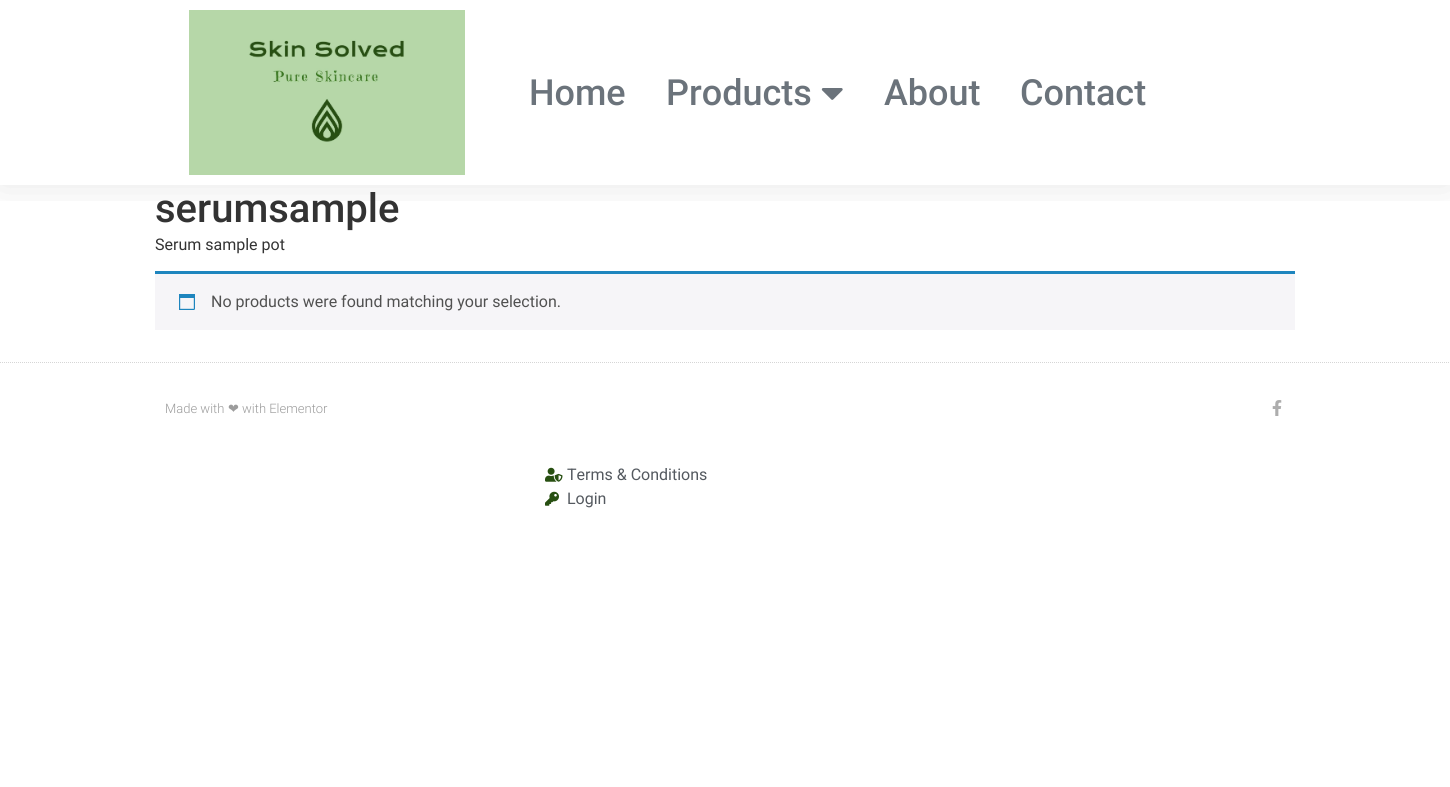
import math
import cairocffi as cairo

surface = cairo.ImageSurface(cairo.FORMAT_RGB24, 1450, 787)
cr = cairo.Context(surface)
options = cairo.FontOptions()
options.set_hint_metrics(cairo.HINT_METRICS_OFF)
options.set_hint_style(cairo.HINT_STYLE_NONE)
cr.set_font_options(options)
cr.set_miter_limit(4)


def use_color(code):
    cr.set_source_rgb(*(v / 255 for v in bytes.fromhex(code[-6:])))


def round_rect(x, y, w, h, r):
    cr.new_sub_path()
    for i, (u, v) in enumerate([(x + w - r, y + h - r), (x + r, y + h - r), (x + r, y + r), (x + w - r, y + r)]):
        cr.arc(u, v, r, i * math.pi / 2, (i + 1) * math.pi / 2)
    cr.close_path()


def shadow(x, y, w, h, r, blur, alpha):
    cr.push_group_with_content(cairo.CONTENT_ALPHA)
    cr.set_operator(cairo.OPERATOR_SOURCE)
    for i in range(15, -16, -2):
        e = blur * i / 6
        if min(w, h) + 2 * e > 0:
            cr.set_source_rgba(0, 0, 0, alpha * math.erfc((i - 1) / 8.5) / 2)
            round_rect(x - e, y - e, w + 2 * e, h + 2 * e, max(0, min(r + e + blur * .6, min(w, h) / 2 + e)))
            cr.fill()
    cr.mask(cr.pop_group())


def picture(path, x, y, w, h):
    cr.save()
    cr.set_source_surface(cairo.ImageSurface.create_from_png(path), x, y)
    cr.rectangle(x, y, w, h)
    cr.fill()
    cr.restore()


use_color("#ffffff")
cr.paint()
cr.save()
cr.rectangle(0, 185, 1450, 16)
cr.clip()
use_color("#000000")
shadow(0, 0, 1450, 185, 0, 19, 0.1)
cr.restore()
picture("img1.png", 189, 10, 276, 165)
cr.select_font_face("Roboto Medium")
cr.set_font_size(36)
use_color("#6b737b")
cr.move_to(529, 105)
cr.show_text("Home")
cr.move_to(666, 105)
cr.show_text("Products")
picture("img2.png", 821, 88, 22, 12)
cr.move_to(884, 105)
cr.show_text("About")
cr.move_to(1020, 105)
cr.show_text("Contact")
cr.set_font_size(40)
use_color("#333333")
cr.move_to(155, 222)
cr.show_text("serumsample")
cr.select_font_face("Roboto")
cr.set_font_size(16)
cr.move_to(155, 250)
cr.show_text("Serum sample pot")
use_color("#f6f5f8")
cr.rectangle(155, 274, 1140, 56)
cr.fill()
use_color("#1e85be")
cr.rectangle(155, 271, 1140, 3)
cr.fill()
picture("img3.png", 179, 294, 16, 16)
use_color("#515151")
cr.move_to(211, 307)
cr.show_text("No products were found matching your selection.")
cr.new_path()
cr.move_to(0, 362.5)
cr.line_to(1450, 362.5)
use_color("#d6d6d6")
cr.set_line_width(1)
cr.set_dash([1, 1])
cr.stroke()
cr.select_font_face("Roboto Light")
cr.set_font_size(13)
use_color("#9c9c9c")
cr.move_to(165, 413)
cr.show_text("Made with")
cr.select_font_face("DejaVu Sans")
cr.move_to(228, 413)
cr.show_text("❤")
cr.select_font_face("Roboto Light")
cr.move_to(242, 413)
cr.show_text("with Elementor")
picture("img4.png", 1272, 400, 10, 16)
picture("img5.png", 545, 467, 18, 15)
cr.select_font_face("Roboto")
cr.set_font_size(16)
use_color("#54595f")
cr.move_to(567, 480)
cr.show_text("Terms & Conditions")
picture("img6.png", 545, 491, 14, 15)
cr.move_to(567, 504)
cr.show_text("Login")
surface.write_to_png("result.png")
